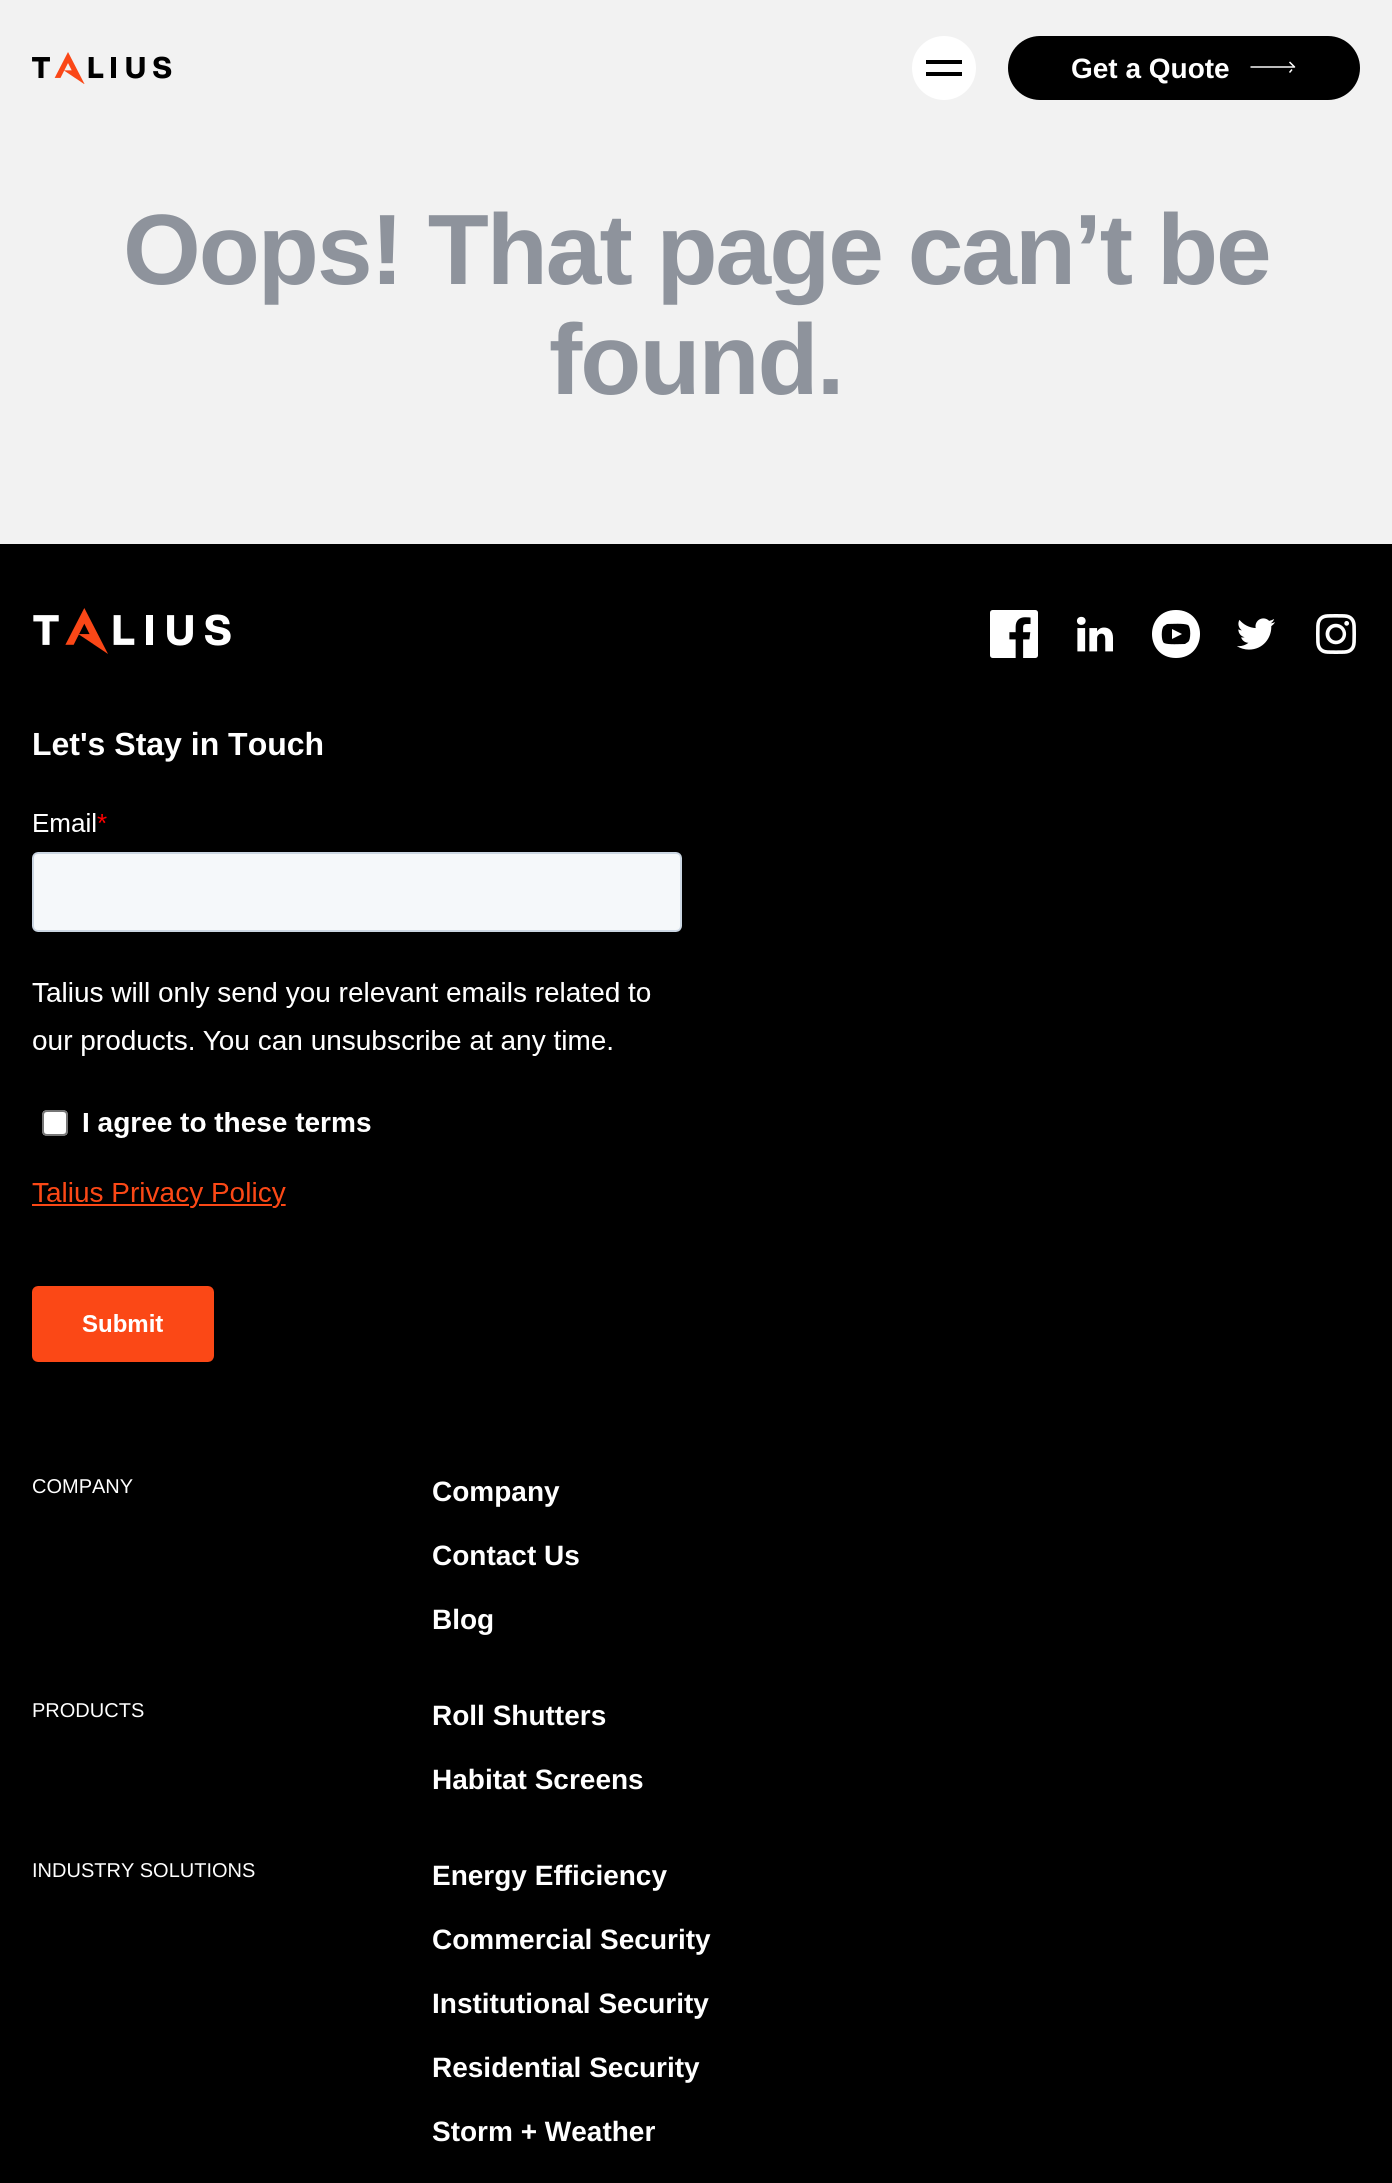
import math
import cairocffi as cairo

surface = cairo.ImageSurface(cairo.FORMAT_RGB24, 1392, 2183)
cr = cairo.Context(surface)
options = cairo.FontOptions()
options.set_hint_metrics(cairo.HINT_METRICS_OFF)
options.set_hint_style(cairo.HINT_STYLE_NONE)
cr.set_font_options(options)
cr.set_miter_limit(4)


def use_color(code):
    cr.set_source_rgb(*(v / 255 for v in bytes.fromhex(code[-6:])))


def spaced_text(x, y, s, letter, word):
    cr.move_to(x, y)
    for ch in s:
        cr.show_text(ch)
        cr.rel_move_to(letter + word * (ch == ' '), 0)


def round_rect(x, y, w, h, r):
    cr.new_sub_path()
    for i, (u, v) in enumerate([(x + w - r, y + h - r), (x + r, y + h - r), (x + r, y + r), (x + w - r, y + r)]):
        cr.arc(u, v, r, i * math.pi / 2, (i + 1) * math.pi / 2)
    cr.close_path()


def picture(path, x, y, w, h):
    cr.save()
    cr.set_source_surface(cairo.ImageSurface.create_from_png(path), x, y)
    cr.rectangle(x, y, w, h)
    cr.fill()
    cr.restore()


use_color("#f2f2f2")
cr.paint()
picture("img1.png", 32, 52, 140, 32)
use_color("#ffffff")
cr.arc(944, 68, 32, 0, 2 * math.pi)
cr.fill()
use_color("#000000")
cr.rectangle(926, 60, 36, 4)
cr.fill()
cr.rectangle(926, 72, 36, 4)
cr.fill()
round_rect(1008, 36, 352, 64, 32)
cr.fill()
cr.select_font_face("Liberation Sans", cairo.FONT_SLANT_NORMAL, cairo.FONT_WEIGHT_BOLD)
cr.set_font_size(28)
use_color("#ffffff")
cr.move_to(1071, 78)
cr.show_text("Get a Quote")
cr.new_path()
cr.move_to(1292, 69.5)
cr.line_to(1289.5, 72.5)
cr.move_to(1250.5, 67)
cr.line_to(1294.5, 67)
cr.line_to(1289.5, 62)
cr.set_line_width(1.5)
cr.set_line_join(cairo.LINE_JOIN_ROUND)
cr.stroke()
cr.set_font_size(100)
use_color("#8e939c")
spaced_text(123, 284, "Oops! That page can’t be", -2, 0)
spaced_text(549, 394, "found.", -2, 0)
use_color("#000000")
cr.rectangle(0, 544, 1392, 1639)
cr.fill()
picture("img2.png", 33, 608, 198, 46)
picture("img3.png", 990, 610, 48, 48)
picture("img4.png", 1076, 616, 37, 36)
use_color("#ffffff")
cr.new_path()
cr.move_to(1176, 610)
cr.curve_to(1144, 610, 1144, 658, 1176, 658)
cr.curve_to(1208, 658, 1208, 610, 1176, 610)
cr.close_path()
cr.move_to(1185, 644)
cr.curve_to(1181, 644, 1168, 645, 1164, 643)
cr.curve_to(1161, 641, 1161, 628, 1164, 626)
cr.line_to(1167, 624)
cr.curve_to(1171, 624, 1184, 623, 1188, 625)
cr.curve_to(1191, 627, 1191, 640, 1188, 642)
cr.close_path()
cr.move_to(1172, 629)
cr.line_to(1182, 634)
cr.line_to(1172, 639)
cr.close_path()
cr.fill()
picture("img5.png", 1237, 618, 38, 32)
picture("img6.png", 1316, 614, 40, 40)
cr.set_font_size(32)
cr.move_to(32, 755)
cr.show_text("Let's Stay in Touch")
picture("img7.png", 32, 813, 650, 549)
cr.select_font_face("Liberation Sans")
cr.set_font_size(20)
cr.move_to(32, 1493)
cr.show_text("COMPANY")
cr.select_font_face("Liberation Sans", cairo.FONT_SLANT_NORMAL, cairo.FONT_WEIGHT_BOLD)
cr.set_font_size(28)
cr.move_to(432, 1501)
cr.show_text("Company")
cr.move_to(432, 1565)
cr.show_text("Contact Us")
cr.move_to(432, 1629)
cr.show_text("Blog")
cr.select_font_face("Liberation Sans")
cr.set_font_size(20)
cr.move_to(32, 1717)
cr.show_text("PRODUCTS")
cr.select_font_face("Liberation Sans", cairo.FONT_SLANT_NORMAL, cairo.FONT_WEIGHT_BOLD)
cr.set_font_size(28)
cr.move_to(432, 1725)
cr.show_text("Roll Shutters")
cr.move_to(432, 1789)
cr.show_text("Habitat Screens")
cr.select_font_face("Liberation Sans")
cr.set_font_size(20)
cr.move_to(32, 1877)
cr.show_text("INDUSTRY SOLUTIONS")
cr.select_font_face("Liberation Sans", cairo.FONT_SLANT_NORMAL, cairo.FONT_WEIGHT_BOLD)
cr.set_font_size(28)
cr.move_to(432, 1885)
cr.show_text("Energy Efficiency")
cr.move_to(432, 1949)
cr.show_text("Commercial Security")
cr.move_to(432, 2013)
cr.show_text("Institutional Security")
cr.move_to(432, 2077)
cr.show_text("Residential Security")
cr.move_to(432, 2141)
cr.show_text("Storm + Weather")
surface.write_to_png("result.png")
